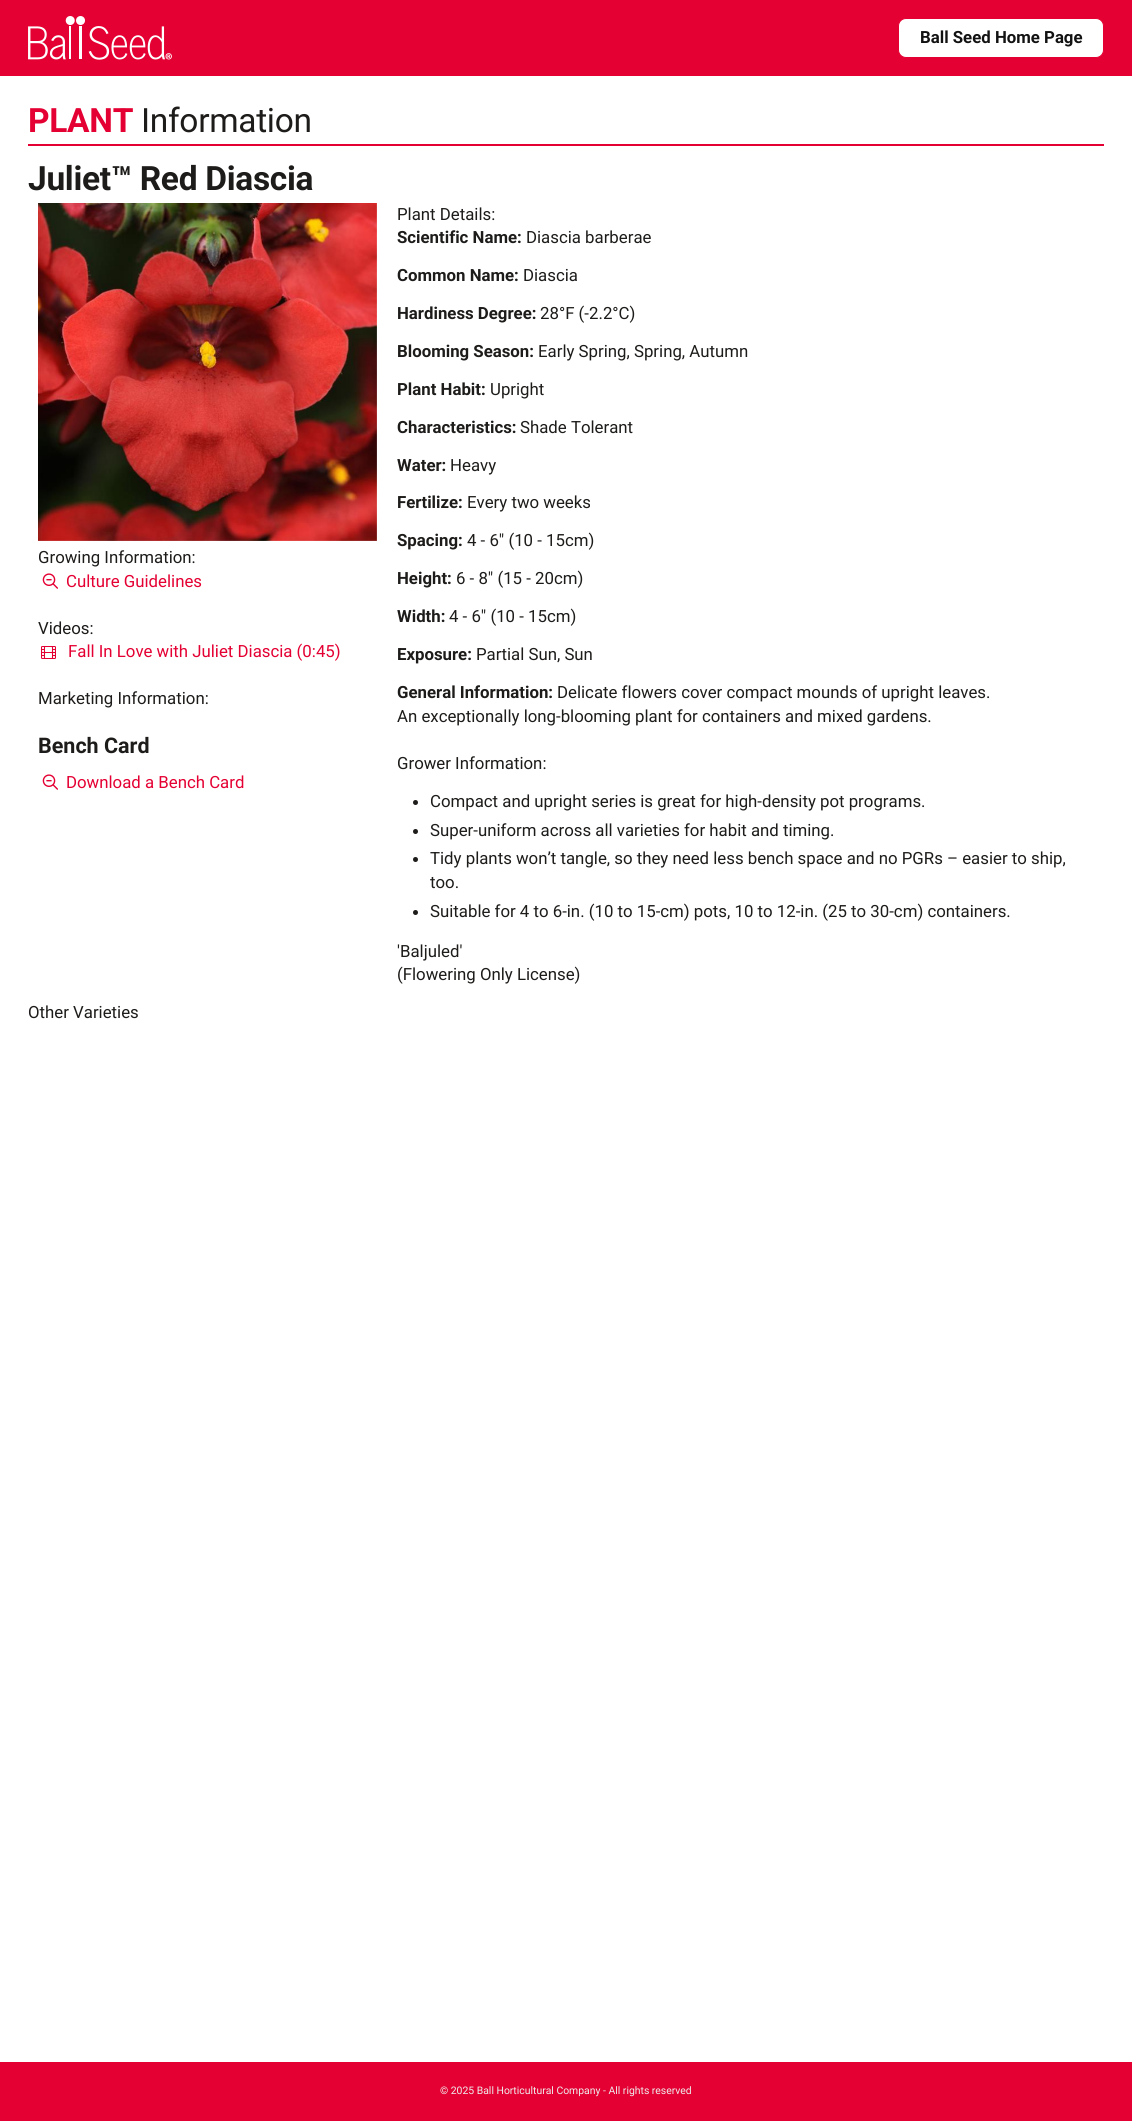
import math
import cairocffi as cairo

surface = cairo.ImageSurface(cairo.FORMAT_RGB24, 1132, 2121)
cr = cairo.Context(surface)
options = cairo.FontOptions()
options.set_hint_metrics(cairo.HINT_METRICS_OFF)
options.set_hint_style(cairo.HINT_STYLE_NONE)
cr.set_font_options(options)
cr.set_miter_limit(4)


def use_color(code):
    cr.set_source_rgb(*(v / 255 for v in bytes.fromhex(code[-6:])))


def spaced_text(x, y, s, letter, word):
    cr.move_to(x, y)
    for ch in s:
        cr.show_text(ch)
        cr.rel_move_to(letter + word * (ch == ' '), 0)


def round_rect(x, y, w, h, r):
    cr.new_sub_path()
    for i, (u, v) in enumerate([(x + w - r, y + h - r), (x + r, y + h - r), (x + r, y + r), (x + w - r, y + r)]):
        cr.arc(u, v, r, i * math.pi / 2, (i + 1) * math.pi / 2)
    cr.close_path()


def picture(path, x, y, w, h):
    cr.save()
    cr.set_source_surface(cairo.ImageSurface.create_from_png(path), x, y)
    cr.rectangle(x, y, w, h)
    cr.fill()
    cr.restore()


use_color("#ffffff")
cr.paint()
use_color("#e40032")
cr.rectangle(0, 0, 1132, 76)
cr.fill()
picture("img1.png", 28, 16, 144, 44)
use_color("#ffffff")
round_rect(898.5, 18.5, 205, 39, 7.5)
cr.fill_preserve()
use_color("#e40032")
cr.set_line_width(1)
cr.stroke()
cr.select_font_face("Roboto", cairo.FONT_SLANT_NORMAL, cairo.FONT_WEIGHT_BOLD)
cr.set_font_size(16.8)
use_color("#121212")
cr.move_to(920, 43)
cr.show_text("Ball Seed Home Page")
use_color("#e40032")
cr.rectangle(28, 144, 1076, 2)
cr.fill()
cr.set_font_size(33.5)
spaced_text(28, 132, "PLANT", -0.3, 0)
cr.select_font_face("Roboto")
use_color("#1d1c1a")
spaced_text(141, 132, "Information", -0.3, 0)
cr.select_font_face("Roboto", cairo.FONT_SLANT_NORMAL, cairo.FONT_WEIGHT_BOLD)
spaced_text(28, 190, "Juliet™ Red Diascia", -0.3, 0)
picture("img2.png", 38, 203, 339, 338)
cr.select_font_face("Roboto")
cr.set_font_size(16.8)
cr.move_to(38, 563)
cr.show_text("Growing Information:")
picture("img3.png", 42, 573, 16, 16)
use_color("#e40032")
cr.move_to(66, 587)
cr.show_text("Culture Guidelines")
use_color("#1d1c1a")
cr.move_to(38, 634)
cr.show_text("Videos:")
picture("img4.png", 41, 646, 15, 13)
use_color("#e40032")
cr.move_to(68, 657)
cr.show_text("Fall In Love with Juliet Diascia (0:45)")
use_color("#1d1c1a")
cr.move_to(38, 704)
cr.show_text("Marketing Information:")
cr.select_font_face("Roboto", cairo.FONT_SLANT_NORMAL, cairo.FONT_WEIGHT_BOLD)
cr.set_font_size(21.5)
cr.move_to(38, 753)
cr.show_text("Bench Card")
picture("img3.png", 42, 774, 16, 16)
cr.select_font_face("Roboto")
cr.set_font_size(16.8)
use_color("#e40032")
cr.move_to(66, 788)
cr.show_text("Download a Bench Card")
use_color("#1d1c1a")
cr.move_to(397, 220)
cr.show_text("Plant Details:")
cr.select_font_face("Roboto", cairo.FONT_SLANT_NORMAL, cairo.FONT_WEIGHT_BOLD)
cr.move_to(397, 243)
cr.show_text("Scientific Name:")
cr.select_font_face("Roboto")
cr.move_to(526, 243)
cr.show_text("Diascia barberae")
cr.select_font_face("Roboto", cairo.FONT_SLANT_NORMAL, cairo.FONT_WEIGHT_BOLD)
cr.move_to(397, 281)
cr.show_text("Common Name:")
cr.select_font_face("Roboto")
cr.move_to(523, 281)
cr.show_text("Diascia")
cr.select_font_face("Roboto", cairo.FONT_SLANT_NORMAL, cairo.FONT_WEIGHT_BOLD)
cr.move_to(397, 319)
cr.show_text("Hardiness Degree:")
cr.select_font_face("Roboto")
cr.move_to(540, 319)
cr.show_text("28°F (-2.2°C)")
cr.select_font_face("Roboto", cairo.FONT_SLANT_NORMAL, cairo.FONT_WEIGHT_BOLD)
cr.move_to(397, 357)
cr.show_text("Blooming Season:")
cr.select_font_face("Roboto")
cr.move_to(538, 357)
cr.show_text("Early Spring, Spring, Autumn")
cr.select_font_face("Roboto", cairo.FONT_SLANT_NORMAL, cairo.FONT_WEIGHT_BOLD)
cr.move_to(397, 395)
cr.show_text("Plant Habit:")
cr.select_font_face("Roboto")
cr.move_to(490, 395)
cr.show_text("Upright")
cr.select_font_face("Roboto", cairo.FONT_SLANT_NORMAL, cairo.FONT_WEIGHT_BOLD)
cr.move_to(397, 433)
cr.show_text("Characteristics:")
cr.select_font_face("Roboto")
cr.move_to(520, 433)
cr.show_text("Shade Tolerant")
cr.select_font_face("Roboto", cairo.FONT_SLANT_NORMAL, cairo.FONT_WEIGHT_BOLD)
cr.move_to(397, 471)
cr.show_text("Water:")
cr.select_font_face("Roboto")
cr.move_to(450, 471)
cr.show_text("Heavy")
cr.select_font_face("Roboto", cairo.FONT_SLANT_NORMAL, cairo.FONT_WEIGHT_BOLD)
cr.move_to(397, 508)
cr.show_text("Fertilize:")
cr.select_font_face("Roboto")
cr.move_to(467, 508)
cr.show_text("Every two weeks")
cr.select_font_face("Roboto", cairo.FONT_SLANT_NORMAL, cairo.FONT_WEIGHT_BOLD)
cr.move_to(397, 546)
cr.show_text("Spacing:")
cr.select_font_face("Roboto")
cr.move_to(467, 546)
cr.show_text("4 - 6\" (10 - 15cm)")
cr.select_font_face("Roboto", cairo.FONT_SLANT_NORMAL, cairo.FONT_WEIGHT_BOLD)
cr.move_to(397, 584)
cr.show_text("Height:")
cr.select_font_face("Roboto")
cr.move_to(456, 584)
cr.show_text("6 - 8\" (15 - 20cm)")
cr.select_font_face("Roboto", cairo.FONT_SLANT_NORMAL, cairo.FONT_WEIGHT_BOLD)
cr.move_to(397, 622)
cr.show_text("Width:")
cr.select_font_face("Roboto")
cr.move_to(449, 622)
cr.show_text("4 - 6\" (10 - 15cm)")
cr.select_font_face("Roboto", cairo.FONT_SLANT_NORMAL, cairo.FONT_WEIGHT_BOLD)
cr.move_to(397, 660)
cr.show_text("Exposure:")
cr.select_font_face("Roboto")
cr.move_to(476, 660)
cr.show_text("Partial Sun, Sun")
cr.select_font_face("Roboto", cairo.FONT_SLANT_NORMAL, cairo.FONT_WEIGHT_BOLD)
cr.move_to(397, 698)
cr.show_text("General Information:")
cr.select_font_face("Roboto")
cr.move_to(557, 698)
cr.show_text("Delicate flowers cover compact mounds of upright leaves.")
cr.move_to(397, 722)
cr.show_text("An exceptionally long-blooming plant for containers and mixed gardens.")
cr.move_to(397, 769)
cr.show_text("Grower Information:")
cr.new_path()
cr.arc(415.5, 802.5, 2.5, 0, 2 * math.pi)
cr.fill()
cr.move_to(430, 807)
cr.show_text("Compact and upright series is great for high-density pot programs.")
cr.new_path()
cr.arc(415.5, 831.5, 2.5, 0, 2 * math.pi)
cr.fill()
cr.move_to(430, 836)
cr.show_text("Super-uniform across all varieties for habit and timing.")
cr.new_path()
cr.arc(415.5, 859.5, 2.5, 0, 2 * math.pi)
cr.fill()
cr.move_to(430, 864)
cr.show_text("Tidy plants won’t tangle, so they need less bench space and no PGRs – easier to ship,")
cr.move_to(430, 888)
cr.show_text("too.")
cr.new_path()
cr.arc(415.5, 912.5, 2.5, 0, 2 * math.pi)
cr.fill()
cr.move_to(430, 917)
cr.show_text("Suitable for 4 to 6-in. (10 to 15-cm) pots, 10 to 12-in. (25 to 30-cm) containers.")
cr.move_to(397, 957)
cr.show_text("'Baljuled'")
cr.move_to(397, 980)
cr.show_text("(Flowering Only License)")
cr.move_to(28, 1018)
cr.show_text("Other Varieties")
use_color("#e40032")
cr.rectangle(0, 2062, 1132, 59)
cr.fill()
cr.set_font_size(10.4)
use_color("#eeeeee")
cr.move_to(440, 2094)
cr.show_text("© 2025 Ball Horticultural Company - All rights reserved")
surface.write_to_png("result.png")
